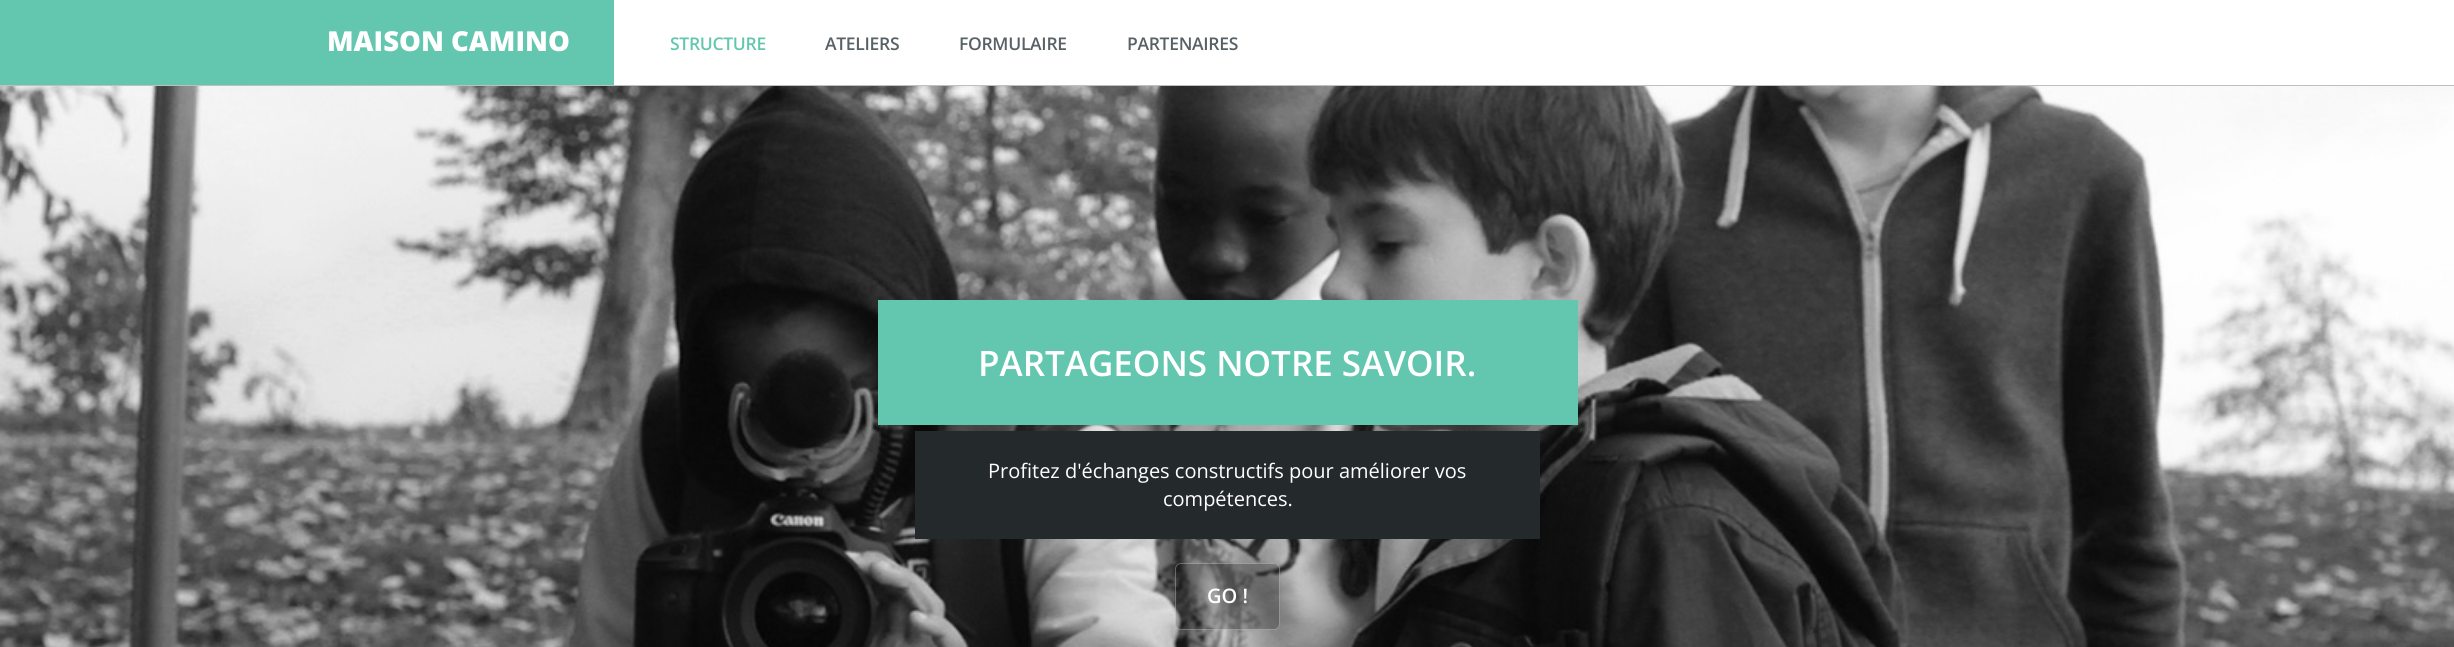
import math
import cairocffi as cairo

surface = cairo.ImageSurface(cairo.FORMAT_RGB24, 2454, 647)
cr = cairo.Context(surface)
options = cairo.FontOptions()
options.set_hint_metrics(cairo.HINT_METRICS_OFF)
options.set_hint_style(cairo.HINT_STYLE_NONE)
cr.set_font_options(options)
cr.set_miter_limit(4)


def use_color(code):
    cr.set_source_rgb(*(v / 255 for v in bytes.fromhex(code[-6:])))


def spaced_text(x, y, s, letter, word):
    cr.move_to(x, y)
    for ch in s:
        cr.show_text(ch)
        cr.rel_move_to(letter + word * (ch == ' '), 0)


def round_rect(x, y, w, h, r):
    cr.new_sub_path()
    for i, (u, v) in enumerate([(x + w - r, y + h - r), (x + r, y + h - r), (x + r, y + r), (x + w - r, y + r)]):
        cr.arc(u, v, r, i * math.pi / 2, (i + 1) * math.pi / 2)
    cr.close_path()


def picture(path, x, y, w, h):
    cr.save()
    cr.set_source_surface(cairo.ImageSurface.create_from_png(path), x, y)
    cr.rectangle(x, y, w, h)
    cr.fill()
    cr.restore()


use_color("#ffffff")
cr.paint()
use_color("#bfbfbf")
cr.rectangle(0, 85, 2454, 1)
cr.fill()
use_color("#63c6ae")
cr.rectangle(0, 0, 614, 85)
cr.fill()
cr.select_font_face("Open Sans ExtraBold")
cr.set_font_size(27.5)
use_color("#ffffff")
cr.move_to(327, 51)
cr.show_text("MAISON CAMINO")
cr.select_font_face("Open Sans SemiBold")
cr.set_font_size(17.5)
use_color("#63c6ae")
spaced_text(670, 50, "STRUCTURE", -0.3, 0)
use_color("#586165")
spaced_text(825, 50, "ATELIERS", -0.3, 0)
spaced_text(959, 50, "FORMULAIRE", -0.3, 0)
spaced_text(1127, 50, "PARTENAIRES", -0.3, 0)
picture("img1.png", 0, 86, 2454, 561)
use_color("#63c6ae")
cr.rectangle(878, 300, 700, 125)
cr.fill()
cr.set_font_size(35)
use_color("#ffffff")
cr.move_to(978, 376)
cr.show_text("PARTAGEONS NOTRE SAVOIR.")
use_color("#242a2c")
cr.rectangle(915, 431, 625, 108)
cr.fill()
cr.select_font_face("Open Sans")
cr.set_font_size(20)
use_color("#ffffff")
cr.move_to(988, 478)
cr.show_text("Profitez d'échanges constructifs pour améliorer vos")
cr.move_to(1163, 506)
cr.show_text("compétences.")
cr.set_source_rgba(0, 0, 0, 0.2)
round_rect(1175, 563, 105, 67, 6)
cr.fill()
round_rect(1175.5, 563.5, 104, 66, 5.5)
cr.set_source_rgba(1, 1, 1, 0.3)
cr.set_line_width(1)
cr.stroke()
cr.select_font_face("Open Sans SemiBold")
use_color("#ffffff")
cr.move_to(1207, 603)
cr.show_text("GO !")
surface.write_to_png("result.png")
